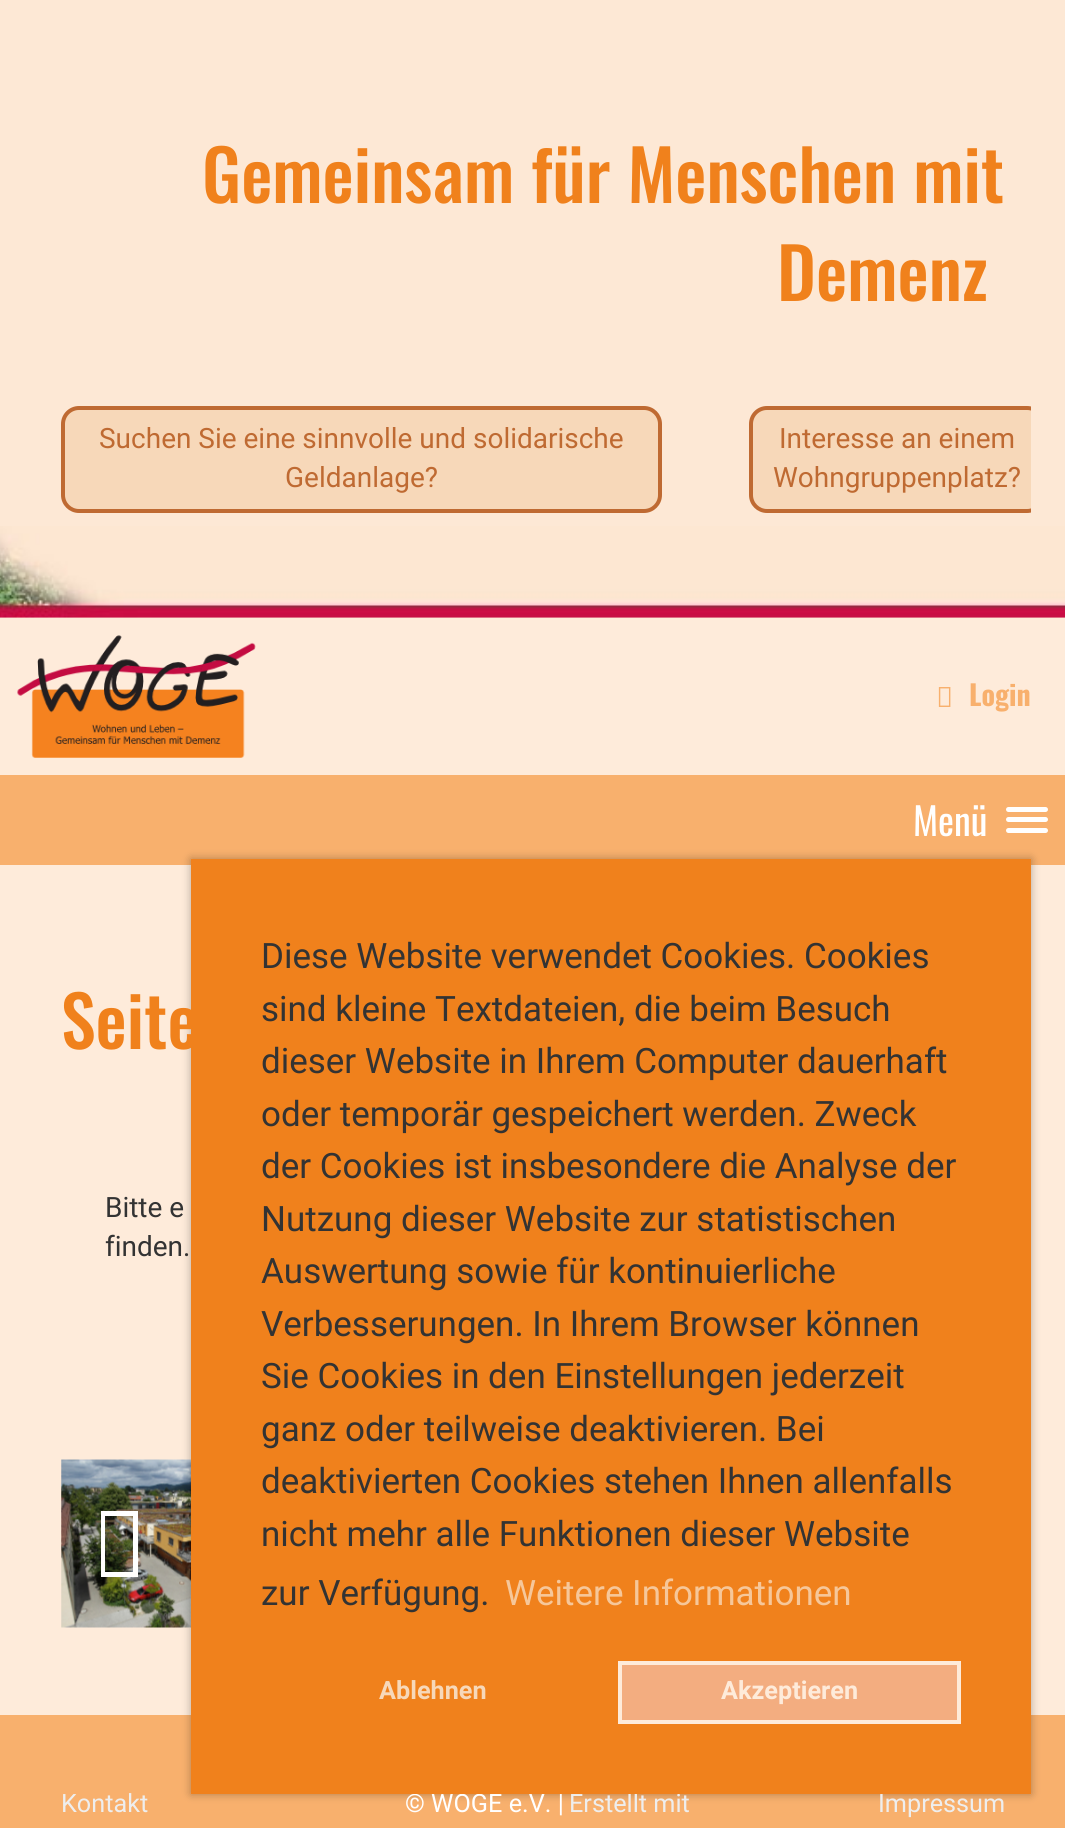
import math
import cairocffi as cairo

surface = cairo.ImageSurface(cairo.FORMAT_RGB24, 1065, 1828)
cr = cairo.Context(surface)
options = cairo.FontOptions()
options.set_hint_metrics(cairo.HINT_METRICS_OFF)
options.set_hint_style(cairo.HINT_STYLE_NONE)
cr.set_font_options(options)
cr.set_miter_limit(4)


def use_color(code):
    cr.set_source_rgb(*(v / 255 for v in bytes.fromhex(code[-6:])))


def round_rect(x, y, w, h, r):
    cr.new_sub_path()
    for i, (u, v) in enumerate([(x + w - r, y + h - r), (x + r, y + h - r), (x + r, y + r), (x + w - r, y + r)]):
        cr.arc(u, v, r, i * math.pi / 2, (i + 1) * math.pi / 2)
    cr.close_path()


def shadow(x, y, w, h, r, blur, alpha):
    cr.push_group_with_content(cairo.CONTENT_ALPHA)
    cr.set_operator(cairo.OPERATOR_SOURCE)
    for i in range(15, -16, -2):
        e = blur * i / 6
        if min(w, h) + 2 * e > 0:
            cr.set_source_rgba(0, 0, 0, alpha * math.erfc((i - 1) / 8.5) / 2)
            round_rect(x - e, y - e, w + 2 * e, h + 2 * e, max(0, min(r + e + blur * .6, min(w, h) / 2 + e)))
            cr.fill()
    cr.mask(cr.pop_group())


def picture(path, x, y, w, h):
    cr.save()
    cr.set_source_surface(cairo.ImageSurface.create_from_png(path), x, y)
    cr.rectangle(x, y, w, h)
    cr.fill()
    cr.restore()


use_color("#feebda")
cr.paint()
use_color("#fde8d5")
cr.rectangle(0, 0, 1065, 618)
cr.fill()
picture("img1.png", 0, 526, 1065, 92)
cr.select_font_face("Oswald Medium")
cr.set_font_size(70)
use_color("#f0811c")
cr.move_to(202, 203)
cr.show_text("Gemeinsam für Menschen mit")
cr.move_to(777, 301)
cr.show_text("Demenz")
use_color("#f7d8b9")
round_rect(63, 408, 597, 103, 16)
cr.fill_preserve()
use_color("#bf6a32")
cr.set_line_width(4)
cr.stroke()
cr.select_font_face("Roboto")
cr.set_font_size(28)
cr.move_to(99, 448)
cr.show_text("Suchen Sie eine sinnvolle und solidarische")
cr.move_to(285, 487)
cr.show_text("Geldanlage?")
cr.save()
cr.rectangle(723, 354, 308, 176)
cr.clip()
use_color("#f7d8b9")
round_rect(751, 408, 292, 103, 16)
cr.fill_preserve()
use_color("#bf6a32")
cr.stroke()
cr.restore()
cr.move_to(779, 448)
cr.show_text("Interesse an einem")
cr.move_to(773, 487)
cr.show_text("Wohngruppenplatz?")
picture("img2.png", 17, 635, 239, 123)
picture("img3.png", 938, 687, 13, 20)
cr.select_font_face("Oswald", cairo.FONT_SLANT_NORMAL, cairo.FONT_WEIGHT_BOLD)
use_color("#f8b06d")
cr.move_to(969, 706)
cr.show_text("Login")
cr.rectangle(0, 775, 1065, 90)
cr.fill()
cr.select_font_face("Oswald")
cr.set_font_size(38)
use_color("#ffffff")
cr.move_to(913, 836)
cr.show_text("Menü")
round_rect(1006, 807, 42, 5, 2.5)
cr.fill()
round_rect(1006, 817, 42, 5, 2.5)
cr.fill()
round_rect(1006, 828, 42, 5, 2.5)
cr.fill()
picture("img4.png", 61, 1459, 130, 169)
use_color("#f8b06d")
cr.rectangle(0, 1715, 1065, 113)
cr.fill()
use_color("#000000")
shadow(191, 859, 840, 935, 0, 4.5, 0.3)
cr.select_font_face("Roboto")
cr.set_font_size(25.25)
use_color("#ffffff")
cr.move_to(405, 1812)
cr.show_text("© WOGE e.V. |")
use_color("#eeeeee")
cr.move_to(569, 1812)
cr.show_text("Erstellt mit")
use_color("#f0811c")
cr.rectangle(191, 859, 840, 935)
cr.fill()
cr.set_font_size(35)
use_color("#333333")
cr.move_to(261, 968)
cr.show_text("Diese Website verwendet Cookies. Cookies")
cr.move_to(261, 1021)
cr.show_text("sind kleine Textdateien, die beim Besuch")
cr.move_to(261, 1073)
cr.show_text("dieser Website in Ihrem Computer dauerhaft")
cr.move_to(261, 1126)
cr.show_text("oder temporär gespeichert werden. Zweck")
cr.move_to(261, 1178)
cr.show_text("der Cookies ist insbesondere die Analyse der")
cr.move_to(261, 1231)
cr.show_text("Nutzung dieser Website zur statistischen")
cr.move_to(261, 1283)
cr.show_text("Auswertung sowie für kontinuierliche")
cr.move_to(261, 1336)
cr.show_text("Verbesserungen. In Ihrem Browser können")
cr.move_to(261, 1388)
cr.show_text("Sie Cookies in den Einstellungen jederzeit")
cr.move_to(261, 1441)
cr.show_text("ganz oder teilweise deaktivieren. Bei")
cr.move_to(261, 1493)
cr.show_text("deaktivierten Cookies stehen Ihnen allenfalls")
cr.move_to(261, 1546)
cr.show_text("nicht mehr alle Funktionen dieser Website")
cr.move_to(261, 1605)
cr.show_text("zur Verfügung.")
use_color("#f6c79a")
cr.move_to(505, 1605)
cr.show_text("Weitere Informationen")
cr.select_font_face("Roboto", cairo.FONT_SLANT_NORMAL, cairo.FONT_WEIGHT_BOLD)
cr.set_font_size(25.25)
use_color("#f7d8b9")
cr.move_to(379, 1699)
cr.show_text("Ablehnen")
use_color("#f3ad80")
cr.rectangle(620, 1663, 339, 59)
cr.fill_preserve()
use_color("#feebda")
cr.stroke()
cr.move_to(721, 1699)
cr.show_text("Akzeptieren")
cr.select_font_face("Oswald Medium")
cr.set_font_size(70)
use_color("#f0811c")
cr.move_to(61, 1049)
cr.show_text("Seite")
cr.select_font_face("Roboto")
cr.set_font_size(28)
use_color("#333333")
cr.move_to(105, 1217)
cr.show_text("Bitte e")
cr.move_to(105, 1256)
cr.show_text("finden.")
use_color("#ffffff")
cr.new_path()
cr.move_to(101, 1577)
cr.line_to(101, 1511)
cr.line_to(138, 1511)
cr.line_to(138, 1577)
cr.close_path()
cr.move_to(105, 1572)
cr.line_to(133, 1572)
cr.line_to(133, 1516)
cr.line_to(105, 1516)
cr.close_path()
cr.fill()
cr.set_font_size(25.25)
use_color("#eeeeee")
cr.move_to(61, 1812)
cr.show_text("Kontakt")
cr.move_to(878, 1812)
cr.show_text("Impressum")
surface.write_to_png("result.png")
